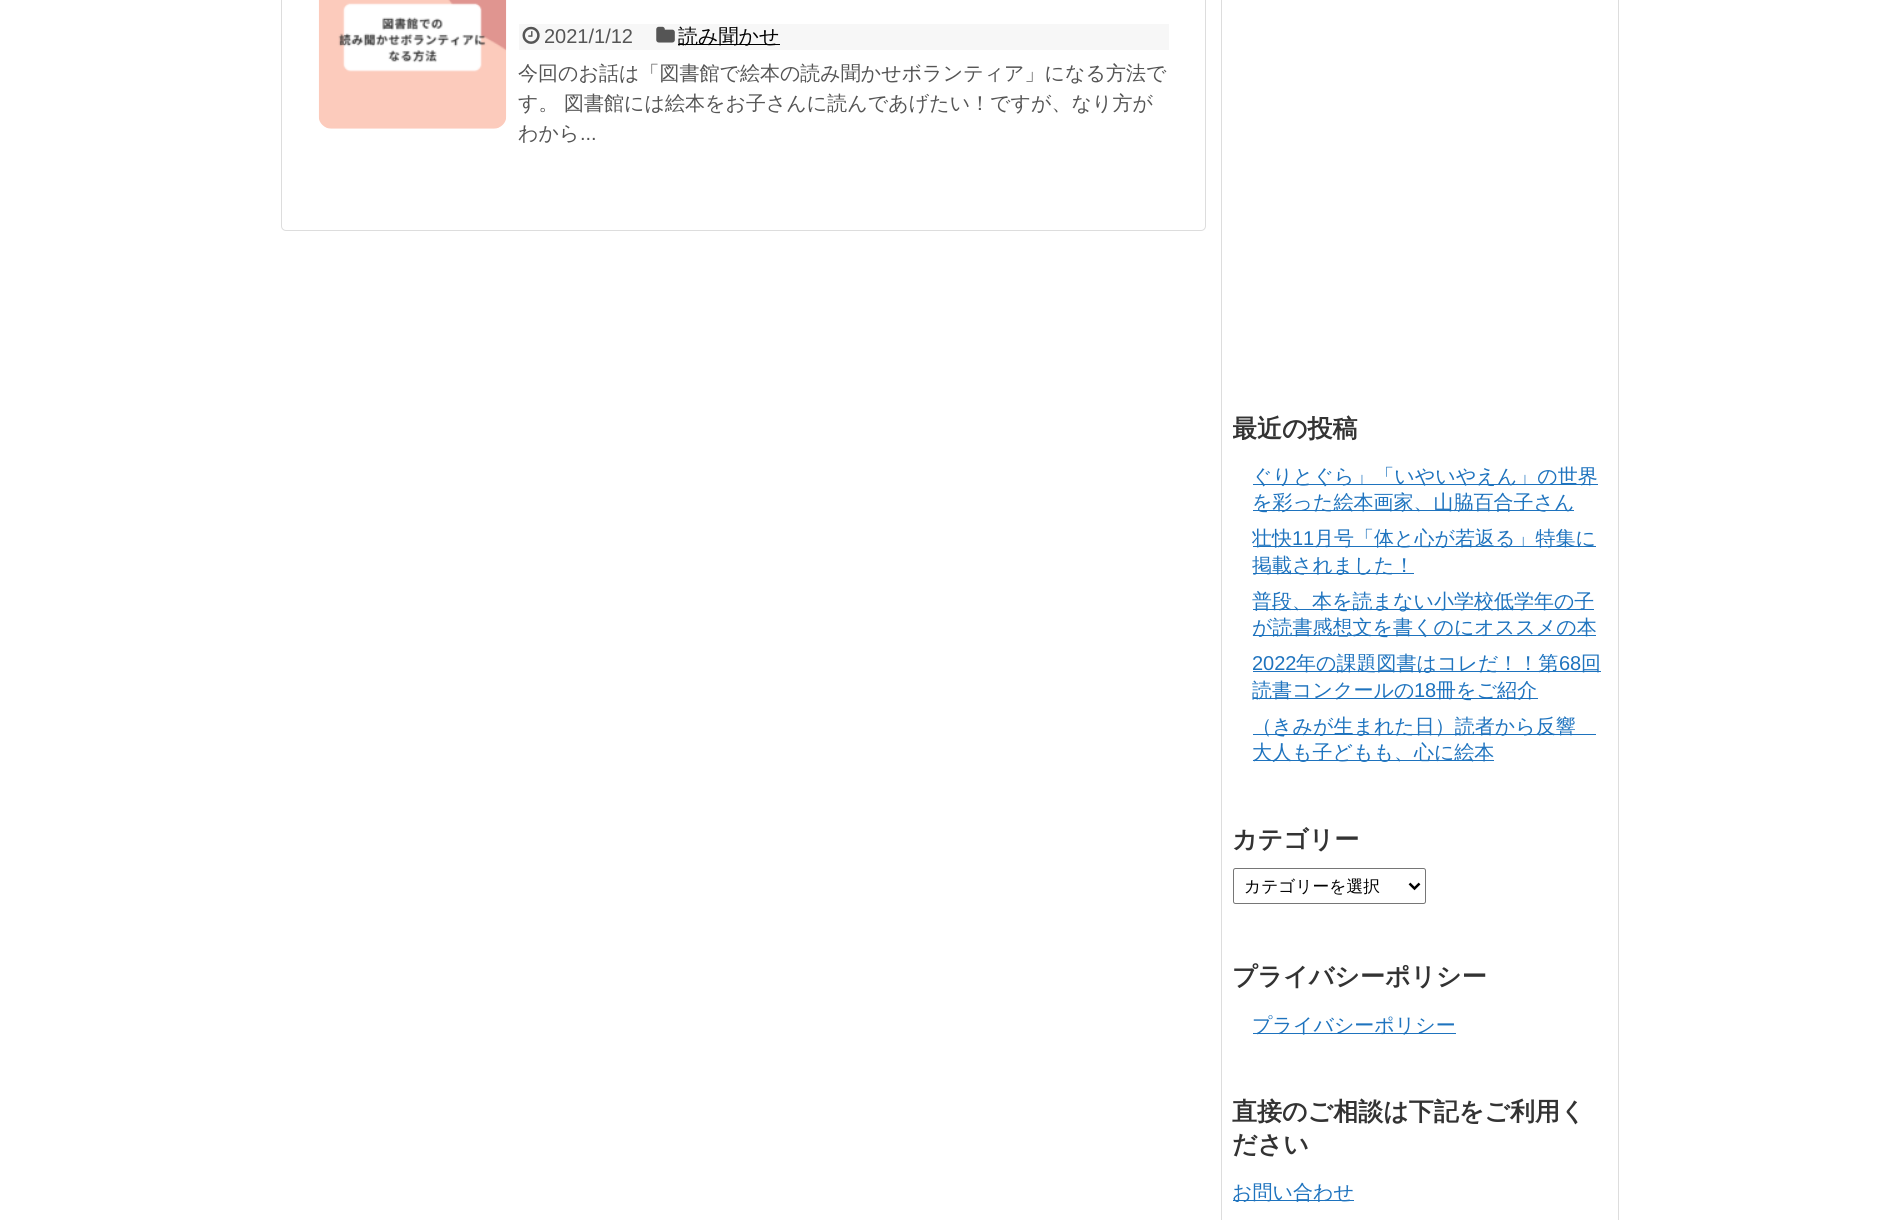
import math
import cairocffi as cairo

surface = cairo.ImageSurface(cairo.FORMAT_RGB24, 1898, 1220)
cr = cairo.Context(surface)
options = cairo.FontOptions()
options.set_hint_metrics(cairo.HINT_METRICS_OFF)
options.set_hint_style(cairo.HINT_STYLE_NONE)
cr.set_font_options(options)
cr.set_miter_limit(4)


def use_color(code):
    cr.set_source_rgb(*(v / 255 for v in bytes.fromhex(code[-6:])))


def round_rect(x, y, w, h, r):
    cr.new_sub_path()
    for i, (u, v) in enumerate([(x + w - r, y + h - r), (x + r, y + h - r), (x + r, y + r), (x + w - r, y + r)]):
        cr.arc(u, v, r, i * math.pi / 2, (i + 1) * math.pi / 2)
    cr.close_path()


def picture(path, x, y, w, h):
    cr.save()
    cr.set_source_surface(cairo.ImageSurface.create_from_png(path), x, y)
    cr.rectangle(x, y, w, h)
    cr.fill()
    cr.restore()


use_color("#ffffff")
cr.paint()
round_rect(281.5, -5.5, 924, 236, 4.5)
use_color("#dddddd")
cr.set_line_width(1)
cr.stroke()
picture("img1.png", 318, 0, 189, 129)
use_color("#f7f7f7")
cr.rectangle(519, 24, 650, 26)
cr.fill()
picture("img2.png", 522, 26, 18, 18)
cr.select_font_face("Liberation Sans")
cr.set_font_size(20)
use_color("#555555")
cr.move_to(544, 43)
cr.show_text("2021/1/12")
picture("img3.png", 656, 26, 19, 17)
use_color("#000000")
cr.rectangle(678, 44, 102, 1)
cr.fill()
cr.select_font_face("WenQuanYi Zen Hei Medium")
cr.move_to(678, 43)
cr.show_text("読み聞かせ")
use_color("#555555")
cr.move_to(518, 80)
cr.show_text("今回のお話は「図書館で絵本の読み聞かせボランティア」になる方法で")
cr.move_to(518, 110)
cr.show_text("す。")
cr.move_to(564, 110)
cr.show_text("図書館には絵本をお子さんに読んであげたい！ですが、なり方が")
cr.move_to(518, 140)
cr.show_text("わから")
cr.select_font_face("Liberation Sans")
cr.move_to(580, 140)
cr.show_text("...")
cr.rectangle(1221.5, -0.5, 397, 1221)
use_color("#dddddd")
cr.stroke()
cr.save()
cr.rectangle(1233, 0, 375, 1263)
cr.clip()
cr.select_font_face("WenQuanYi Zen Hei", cairo.FONT_SLANT_NORMAL, cairo.FONT_WEIGHT_BOLD)
cr.set_font_size(25)
use_color("#333333")
cr.move_to(1232, 437)
cr.show_text("最近の投稿")
cr.restore()
use_color("#1e73be")
cr.rectangle(1253, 484, 345, 1)
cr.fill()
cr.select_font_face("WenQuanYi Zen Hei Medium")
cr.move_to(1252, 483)
cr.show_text("ぐりとぐら」「いやいやえん」の世界")
cr.rectangle(1253, 510, 321, 1)
cr.fill()
cr.move_to(1252, 509)
cr.show_text("を彩った絵本画家、山脇百合子さん")
cr.rectangle(1253, 546, 343, 1)
cr.fill()
cr.move_to(1252, 545)
cr.show_text("壮快")
cr.select_font_face("Liberation Sans")
cr.move_to(1292, 545)
cr.show_text("11")
cr.select_font_face("WenQuanYi Zen Hei Medium")
cr.move_to(1314, 545)
cr.show_text("月号「体と心が若返る」特集に")
cr.rectangle(1253, 573, 161, 1)
cr.fill()
cr.move_to(1252, 572)
cr.show_text("掲載されました！")
cr.rectangle(1253, 609, 341, 1)
cr.fill()
cr.move_to(1252, 608)
cr.show_text("普段、本を読まない小学校低学年の子")
cr.rectangle(1253, 635, 343, 1)
cr.fill()
cr.move_to(1252, 634)
cr.show_text("が読書感想文を書くのにオススメの本")
cr.select_font_face("Liberation Sans")
cr.move_to(1252, 670)
cr.show_text("2022")
cr.rectangle(1253, 671, 348, 1)
cr.fill()
cr.select_font_face("WenQuanYi Zen Hei Medium")
cr.move_to(1296, 670)
cr.show_text("年の課題図書はコレだ！！第")
cr.select_font_face("Liberation Sans")
cr.move_to(1559, 670)
cr.show_text("68")
cr.select_font_face("WenQuanYi Zen Hei Medium")
cr.move_to(1581, 670)
cr.show_text("回")
cr.rectangle(1253, 698, 285, 1)
cr.fill()
cr.move_to(1252, 697)
cr.show_text("読書コンクールの")
cr.select_font_face("Liberation Sans")
cr.move_to(1414, 697)
cr.show_text("18")
cr.select_font_face("WenQuanYi Zen Hei Medium")
cr.move_to(1436, 697)
cr.show_text("冊をご紹介")
cr.rectangle(1253, 734, 343, 1)
cr.fill()
cr.move_to(1252, 733)
cr.show_text("（きみが生まれた日）読者から反響")
cr.rectangle(1253, 760, 241, 1)
cr.fill()
cr.move_to(1252, 759)
cr.show_text("大人も子どもも、心に絵本")
cr.select_font_face("WenQuanYi Zen Hei", cairo.FONT_SLANT_NORMAL, cairo.FONT_WEIGHT_BOLD)
cr.set_font_size(25)
use_color("#333333")
cr.move_to(1232, 848)
cr.show_text("カテゴリー")
round_rect(1233.5, 868.5, 192, 35, 2)
use_color("#767676")
cr.stroke()
cr.new_path()
cr.move_to(1409.5, 883.5)
cr.line_to(1414.5, 888.5)
cr.line_to(1419.5, 883.5)
use_color("#000000")
cr.set_line_width(2.5)
cr.stroke()
cr.select_font_face("WenQuanYi Zen Hei Medium")
cr.set_font_size(16.75)
cr.move_to(1244, 892)
cr.show_text("カテゴリーを選択")
cr.select_font_face("WenQuanYi Zen Hei", cairo.FONT_SLANT_NORMAL, cairo.FONT_WEIGHT_BOLD)
cr.set_font_size(25)
use_color("#333333")
cr.move_to(1232, 985)
cr.show_text("プライバシーポリシー")
use_color("#1e73be")
cr.rectangle(1253, 1033, 203, 1)
cr.fill()
cr.select_font_face("WenQuanYi Zen Hei Medium")
cr.set_font_size(20)
cr.move_to(1252, 1032)
cr.show_text("プライバシーポリシー")
cr.select_font_face("WenQuanYi Zen Hei", cairo.FONT_SLANT_NORMAL, cairo.FONT_WEIGHT_BOLD)
cr.set_font_size(25)
use_color("#333333")
cr.move_to(1232, 1120)
cr.show_text("直接のご相談は下記をご利用く")
cr.move_to(1232, 1153)
cr.show_text("ださい")
use_color("#1e73be")
cr.rectangle(1233, 1200, 121, 1)
cr.fill()
cr.select_font_face("WenQuanYi Zen Hei Medium")
cr.set_font_size(20)
cr.move_to(1232, 1199)
cr.show_text("お問い合わせ")
surface.write_to_png("result.png")
